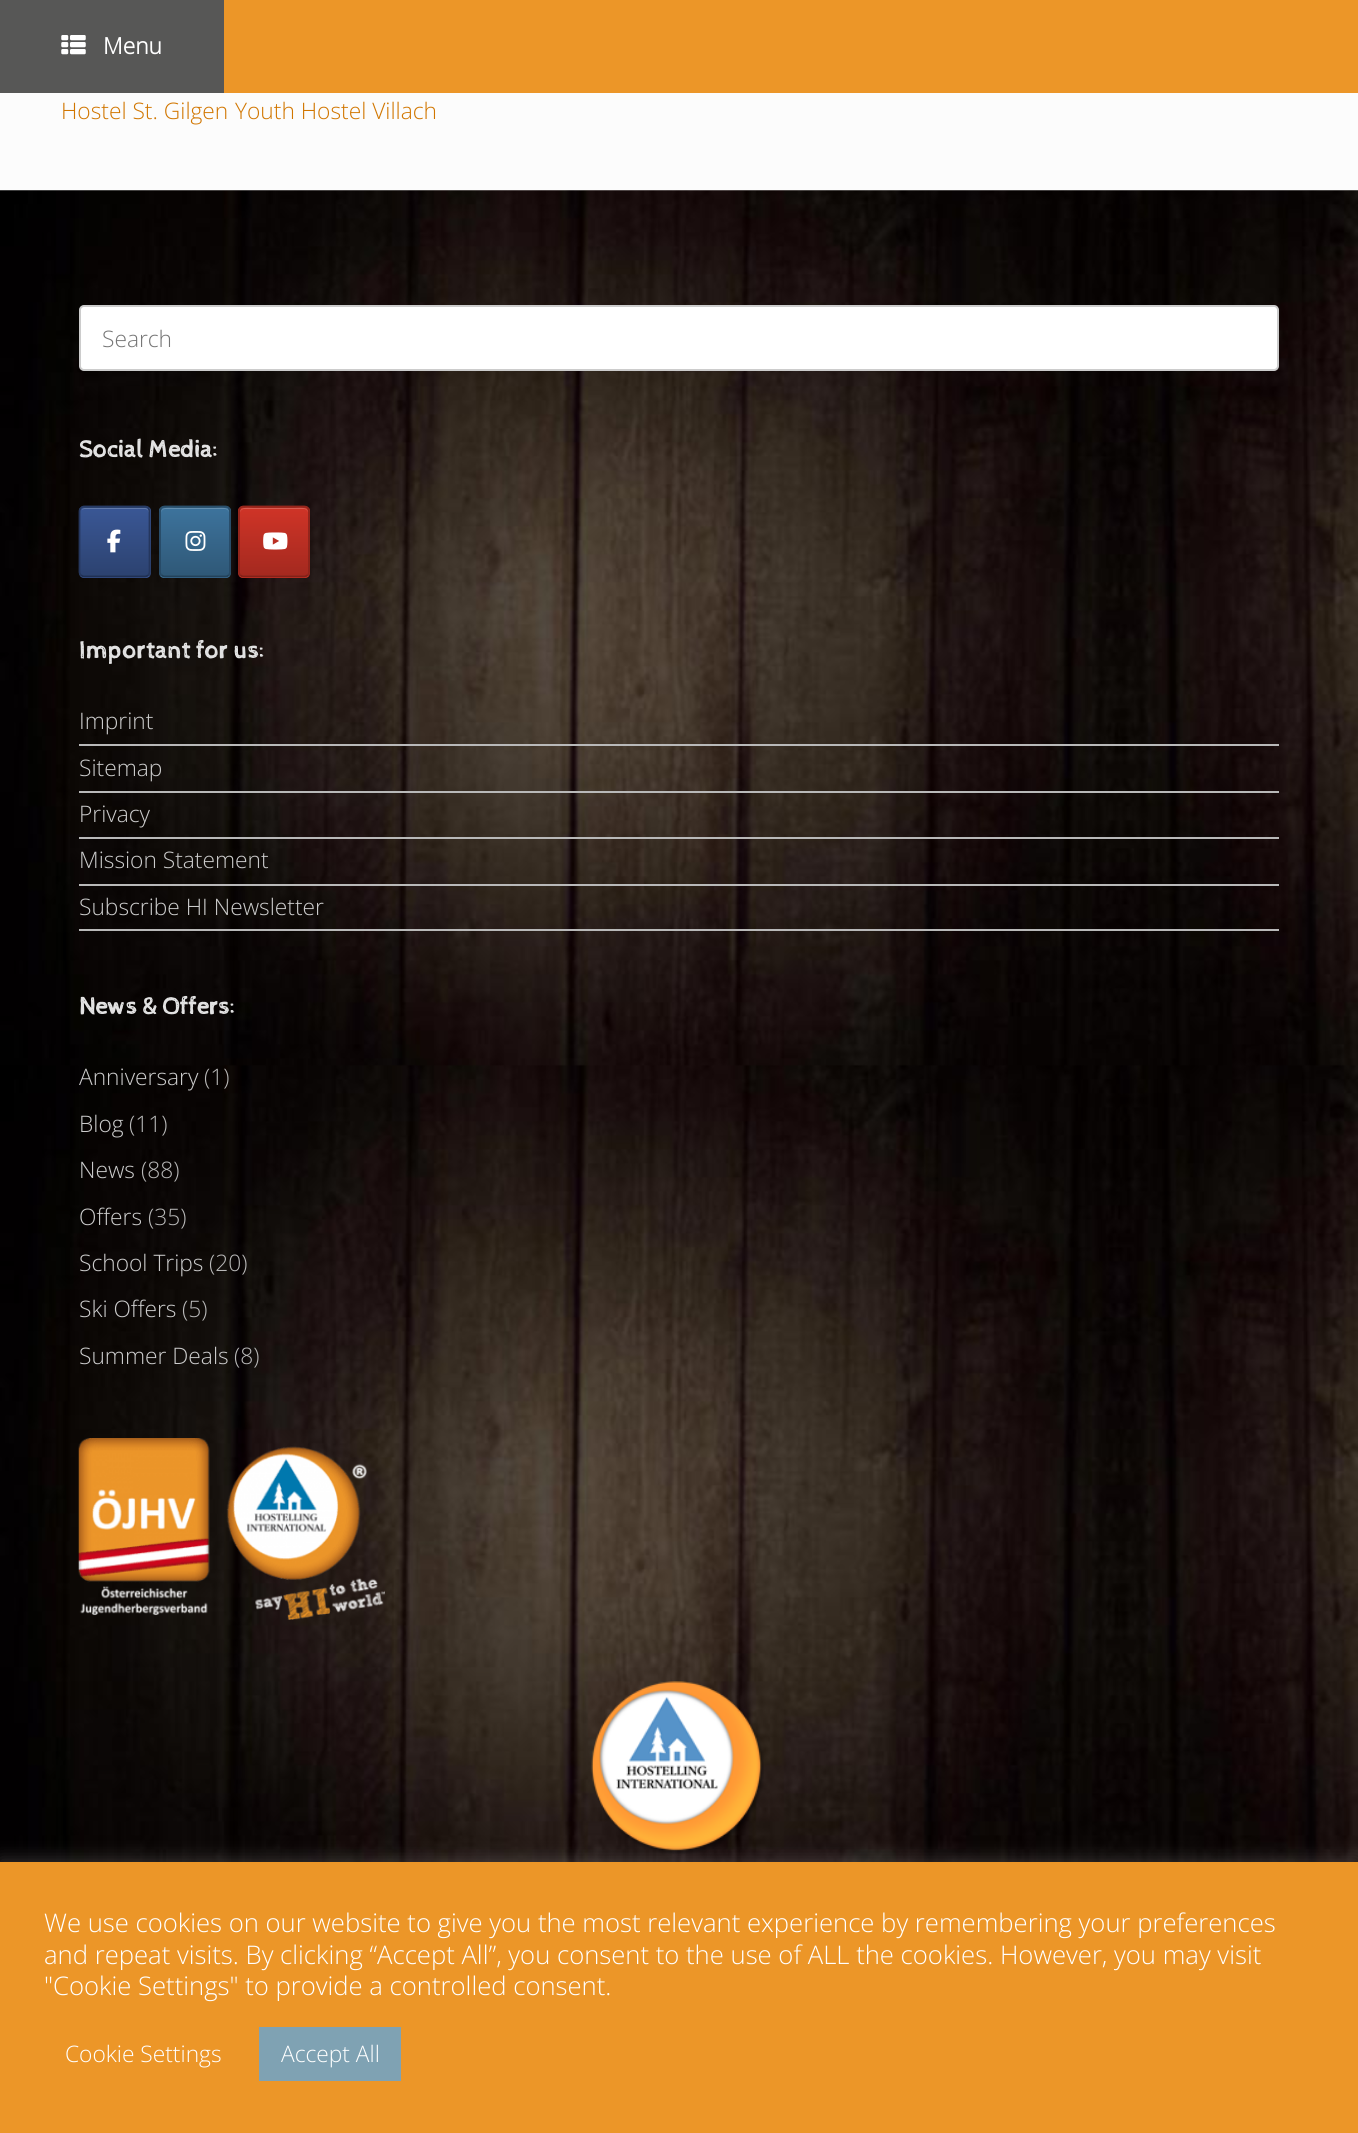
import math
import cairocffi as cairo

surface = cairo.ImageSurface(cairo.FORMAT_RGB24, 1358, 2133)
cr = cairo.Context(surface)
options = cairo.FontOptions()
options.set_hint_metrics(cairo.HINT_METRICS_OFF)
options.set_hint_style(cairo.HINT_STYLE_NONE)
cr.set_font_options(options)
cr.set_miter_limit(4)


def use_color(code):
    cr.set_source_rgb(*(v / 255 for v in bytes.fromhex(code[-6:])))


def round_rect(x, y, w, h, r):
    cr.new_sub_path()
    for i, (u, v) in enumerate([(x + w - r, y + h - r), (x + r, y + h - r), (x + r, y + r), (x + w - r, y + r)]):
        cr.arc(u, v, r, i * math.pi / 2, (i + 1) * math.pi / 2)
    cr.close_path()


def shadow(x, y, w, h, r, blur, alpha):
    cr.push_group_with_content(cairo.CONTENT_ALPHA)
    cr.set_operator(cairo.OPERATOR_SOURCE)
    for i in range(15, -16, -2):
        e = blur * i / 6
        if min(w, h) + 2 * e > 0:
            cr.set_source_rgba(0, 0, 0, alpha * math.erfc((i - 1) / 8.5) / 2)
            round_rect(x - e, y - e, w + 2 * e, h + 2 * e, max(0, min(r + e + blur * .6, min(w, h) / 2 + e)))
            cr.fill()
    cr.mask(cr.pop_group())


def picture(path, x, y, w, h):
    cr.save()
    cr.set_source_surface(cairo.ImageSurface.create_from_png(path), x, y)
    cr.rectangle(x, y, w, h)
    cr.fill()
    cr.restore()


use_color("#fcfcfc")
cr.paint()
use_color("#ec9628")
cr.rectangle(224, 0, 1134, 93)
cr.fill()
use_color("#575756")
cr.rectangle(0, 0, 224, 93)
cr.fill()
picture("img1.png", 61, 35, 25, 20)
cr.select_font_face("Open Sans", cairo.FONT_SLANT_NORMAL, cairo.FONT_WEIGHT_BOLD)
cr.set_font_size(22.75)
use_color("#ffffff")
cr.move_to(103, 54)
cr.show_text("Menu")
cr.select_font_face("Open Sans Light")
use_color("#d17600")
cr.move_to(61, 119)
cr.show_text("Hostel St. Gilgen")
cr.move_to(235, 119)
cr.show_text("Youth Hostel Villach")
picture("img2.png", 0, 190, 1358, 1672)
use_color("#ffffff")
round_rect(80, 306, 1198, 64, 4)
cr.fill_preserve()
use_color("#cccccc")
cr.stroke()
use_color("#757575")
cr.move_to(102, 347)
cr.show_text("Search")
cr.select_font_face("Cabin Sketch", cairo.FONT_SLANT_NORMAL, cairo.FONT_WEIGHT_BOLD)
cr.set_font_size(24.5)
use_color("#e2e2e2")
cr.move_to(79, 457)
cr.show_text("Social Media:")
cr.save()
round_rect(79, 506, 72, 72, 5)
cr.clip()
gradient = cairo.LinearGradient(81, 508, 81, 439)
gradient.add_color_stop_rgba(0, 0.173, 0.259, 0.439, 1)
gradient.add_color_stop_rgba(1, 0.227, 0.341, 0.584, 1)
cr.set_source(gradient)
cr.rectangle(79, 506, 72, 2)
cr.fill()
gradient = cairo.LinearGradient(81, 576, 81, 508)
gradient.add_color_stop_rgba(0, 0.173, 0.259, 0.439, 1)
gradient.add_color_stop_rgba(1, 0.227, 0.341, 0.584, 1)
cr.set_source(gradient)
cr.rectangle(79, 508, 72, 68)
cr.fill()
gradient = cairo.LinearGradient(81, 644, 81, 576)
gradient.add_color_stop_rgba(0, 0.173, 0.259, 0.439, 1)
gradient.add_color_stop_rgba(1, 0.227, 0.341, 0.584, 1)
cr.set_source(gradient)
cr.rectangle(79, 576, 72, 2)
cr.fill()
cr.restore()
use_color("#6179aa")
cr.new_path()
cr.move_to(84, 509)
cr.line_to(145, 509)
cr.curve_to(147, 509, 149, 511, 149, 513)
cr.line_to(149, 512)
cr.curve_to(149, 510, 147, 508, 145, 508)
cr.line_to(85, 508)
cr.curve_to(84, 508, 82, 509, 82, 510)
cr.close_path()
cr.fill()
cr.new_path()
cr.move_to(81, 508)
cr.curve_to(82, 507, 83, 506.5, 84.5, 506.5)
cr.line_to(145, 506.5)
cr.curve_to(146, 506.5, 147.5, 507, 148, 508)
use_color("#273b65")
cr.set_line_width(1.8)
cr.stroke()
cr.new_path()
cr.move_to(148, 508)
cr.curve_to(149, 509, 149.5, 510, 149.5, 511.5)
cr.line_to(149.5, 572)
cr.curve_to(149.5, 573, 149, 574.5, 148, 575)
use_color("#25375e")
cr.stroke()
cr.new_path()
cr.move_to(148, 575)
cr.curve_to(147.5, 576, 146, 576.5, 145, 576.5)
cr.line_to(84.5, 576.5)
cr.curve_to(83, 576.5, 82, 576, 81, 575)
use_color("#203053")
cr.stroke()
cr.new_path()
cr.move_to(81, 575)
cr.curve_to(80, 574.5, 79.5, 573, 79.5, 572)
cr.line_to(79.5, 511.5)
cr.curve_to(79.5, 510, 80, 509, 81, 508)
use_color("#25375e")
cr.stroke()
picture("img3.png", 107, 529, 14, 24)
cr.save()
round_rect(159, 506, 72, 72, 5)
cr.clip()
gradient = cairo.LinearGradient(161, 508, 161, 439)
gradient.add_color_stop_rgba(0, 0.184, 0.345, 0.467, 1)
gradient.add_color_stop_rgba(1, 0.239, 0.451, 0.612, 1)
cr.set_source(gradient)
cr.rectangle(159, 506, 72, 2)
cr.fill()
gradient = cairo.LinearGradient(161, 576, 161, 508)
gradient.add_color_stop_rgba(0, 0.184, 0.345, 0.467, 1)
gradient.add_color_stop_rgba(1, 0.239, 0.451, 0.612, 1)
cr.set_source(gradient)
cr.rectangle(159, 508, 72, 68)
cr.fill()
gradient = cairo.LinearGradient(161, 644, 161, 576)
gradient.add_color_stop_rgba(0, 0.184, 0.345, 0.467, 1)
gradient.add_color_stop_rgba(1, 0.239, 0.451, 0.612, 1)
cr.set_source(gradient)
cr.rectangle(159, 576, 72, 2)
cr.fill()
cr.restore()
use_color("#648fb0")
cr.new_path()
cr.move_to(165, 509)
cr.line_to(225, 509)
cr.curve_to(227, 509, 229, 511, 229, 513)
cr.curve_to(229, 506, 220, 508, 215, 508)
cr.line_to(175, 508)
cr.curve_to(170, 508, 161, 506, 161, 513)
cr.curve_to(161, 511, 163, 509, 165, 509)
cr.close_path()
cr.fill()
cr.new_path()
cr.move_to(161.5, 508)
cr.curve_to(162.5, 507, 163.5, 506.5, 165, 506.5)
cr.line_to(225.5, 506.5)
cr.curve_to(226.5, 506.5, 228, 507, 228.5, 508)
use_color("#2a506c")
cr.stroke()
cr.new_path()
cr.move_to(228.5, 508)
cr.curve_to(229.5, 509, 230, 510, 230, 511.5)
cr.line_to(230, 572)
cr.curve_to(230, 573, 229.5, 574.5, 228.5, 575)
use_color("#274a65")
cr.stroke()
cr.new_path()
cr.move_to(228.5, 575)
cr.curve_to(228, 576, 226.5, 576.5, 225.5, 576.5)
cr.line_to(165, 576.5)
cr.curve_to(163.5, 576.5, 162.5, 576, 161.5, 575)
use_color("#23425a")
cr.stroke()
cr.new_path()
cr.move_to(161.5, 575)
cr.curve_to(160.5, 574.5, 160, 573, 160, 572)
cr.line_to(160, 511.5)
cr.curve_to(160, 510, 160.5, 509, 161.5, 508)
use_color("#274a65")
cr.stroke()
picture("img4.png", 185, 531, 21, 20)
cr.save()
round_rect(238, 506, 72, 72, 5)
cr.clip()
gradient = cairo.LinearGradient(240, 508, 240, 439)
gradient.add_color_stop_rgba(0, 0.643, 0.161, 0.122, 1)
gradient.add_color_stop_rgba(1, 0.812, 0.204, 0.153, 1)
cr.set_source(gradient)
cr.rectangle(238, 506, 72, 2)
cr.fill()
gradient = cairo.LinearGradient(240, 576, 240, 508)
gradient.add_color_stop_rgba(0, 0.643, 0.161, 0.122, 1)
gradient.add_color_stop_rgba(1, 0.812, 0.204, 0.153, 1)
cr.set_source(gradient)
cr.rectangle(238, 508, 72, 68)
cr.fill()
gradient = cairo.LinearGradient(240, 644, 240, 576)
gradient.add_color_stop_rgba(0, 0.643, 0.161, 0.122, 1)
gradient.add_color_stop_rgba(1, 0.812, 0.204, 0.153, 1)
cr.set_source(gradient)
cr.rectangle(238, 576, 72, 2)
cr.fill()
cr.restore()
use_color("#d95d52")
cr.new_path()
cr.move_to(244, 509)
cr.line_to(304, 509)
cr.curve_to(306, 509, 308, 511, 308, 513)
cr.curve_to(308, 506, 299, 508, 294, 508)
cr.line_to(254, 508)
cr.curve_to(249, 508, 240, 506, 240, 513)
cr.curve_to(240, 511, 242, 509, 244, 509)
cr.close_path()
cr.fill()
cr.new_path()
cr.move_to(240.5, 508)
cr.curve_to(241, 507, 242.5, 506.5, 243.5, 506.5)
cr.line_to(304, 506.5)
cr.curve_to(305.5, 506.5, 306.5, 507, 307.5, 508)
use_color("#97261c")
cr.stroke()
cr.new_path()
cr.move_to(307.5, 508)
cr.curve_to(308.5, 509, 309, 510, 309, 511.5)
cr.line_to(309, 572)
cr.curve_to(309, 573, 308.5, 574.5, 307.5, 575)
use_color("#8f241b")
cr.stroke()
cr.new_path()
cr.move_to(307.5, 575)
cr.curve_to(306.5, 576, 305.5, 576.5, 304, 576.5)
cr.line_to(243.5, 576.5)
cr.curve_to(242.5, 576.5, 241, 576, 240.5, 575)
use_color("#822118")
cr.stroke()
cr.new_path()
cr.move_to(240.5, 575)
cr.curve_to(239.5, 574.5, 239, 573, 239, 572)
cr.line_to(239, 511.5)
cr.curve_to(239, 510, 239.5, 509, 240.5, 508)
use_color("#8f241b")
cr.stroke()
picture("img5.png", 263, 532, 25, 18)
use_color("#e2e2e2")
cr.move_to(79, 658)
cr.show_text("Important for us:")
use_color("#b9b9b9")
cr.rectangle(79, 744, 1200, 2)
cr.fill()
cr.select_font_face("Open Sans Light")
cr.set_font_size(22.75)
use_color("#cccccc")
cr.move_to(79, 729)
cr.show_text("Imprint")
use_color("#b9b9b9")
cr.rectangle(79, 791, 1200, 2)
cr.fill()
use_color("#cccccc")
cr.move_to(79, 776)
cr.show_text("Sitemap")
use_color("#b9b9b9")
cr.rectangle(79, 837, 1200, 2)
cr.fill()
use_color("#cccccc")
cr.move_to(79, 822)
cr.show_text("Privacy")
use_color("#b9b9b9")
cr.rectangle(79, 884, 1200, 2)
cr.fill()
use_color("#cccccc")
cr.move_to(79, 868)
cr.show_text("Mission Statement")
use_color("#b9b9b9")
cr.rectangle(79, 929, 1200, 2)
cr.fill()
use_color("#cccccc")
cr.move_to(79, 915)
cr.show_text("Subscribe HI Newsletter")
cr.select_font_face("Cabin Sketch", cairo.FONT_SLANT_NORMAL, cairo.FONT_WEIGHT_BOLD)
cr.set_font_size(24.5)
use_color("#e2e2e2")
cr.move_to(79, 1014)
cr.show_text("News & Offers:")
cr.select_font_face("Open Sans Light")
cr.set_font_size(22.75)
use_color("#cccccc")
cr.move_to(79, 1085)
cr.show_text("Anniversary")
use_color("#b9b9b9")
cr.move_to(204, 1085)
cr.show_text("(1)")
use_color("#cccccc")
cr.move_to(79, 1132)
cr.show_text("Blog")
use_color("#b9b9b9")
cr.move_to(129, 1132)
cr.show_text("(11)")
use_color("#cccccc")
cr.move_to(79, 1178)
cr.show_text("News")
use_color("#b9b9b9")
cr.move_to(141, 1178)
cr.show_text("(88)")
use_color("#cccccc")
cr.move_to(79, 1225)
cr.show_text("Offers")
use_color("#b9b9b9")
cr.move_to(148, 1225)
cr.show_text("(35)")
use_color("#cccccc")
cr.move_to(79, 1271)
cr.show_text("School Trips")
use_color("#b9b9b9")
cr.move_to(209, 1271)
cr.show_text("(20)")
use_color("#cccccc")
cr.move_to(79, 1317)
cr.show_text("Ski Offers")
use_color("#b9b9b9")
cr.move_to(182, 1317)
cr.show_text("(5)")
use_color("#cccccc")
cr.move_to(79, 1364)
cr.show_text("Summer Deals")
use_color("#b9b9b9")
cr.move_to(234, 1364)
cr.show_text("(8)")
picture("img6.png", 78, 1438, 307, 182)
picture("img7.png", 591, 1681, 173, 173)
use_color("#acabab")
shadow(0, 1860, 1358, 272, 0, 9, 0.3)
use_color("#ec9628")
cr.rectangle(0, 1862, 1358, 271)
cr.fill()
cr.set_font_size(25.65)
use_color("#ffffff")
cr.move_to(44, 1932)
cr.show_text("We use cookies on our website to give you the most relevant experience by remembering your preferences")
cr.move_to(44, 1964)
cr.show_text("and repeat visits. By clicking “Accept All”, you consent to the use of ALL the cookies. However, you may visit")
cr.move_to(44, 1995)
cr.show_text("\"Cookie Settings\" to provide a controlled consent.")
cr.set_font_size(22.75)
cr.move_to(65, 2062)
cr.show_text("Cookie Settings")
use_color("#7fa2b3")
cr.rectangle(259, 2027, 142, 54)
cr.fill()
use_color("#ffffff")
cr.move_to(281, 2062)
cr.show_text("Accept All")
surface.write_to_png("result.png")
